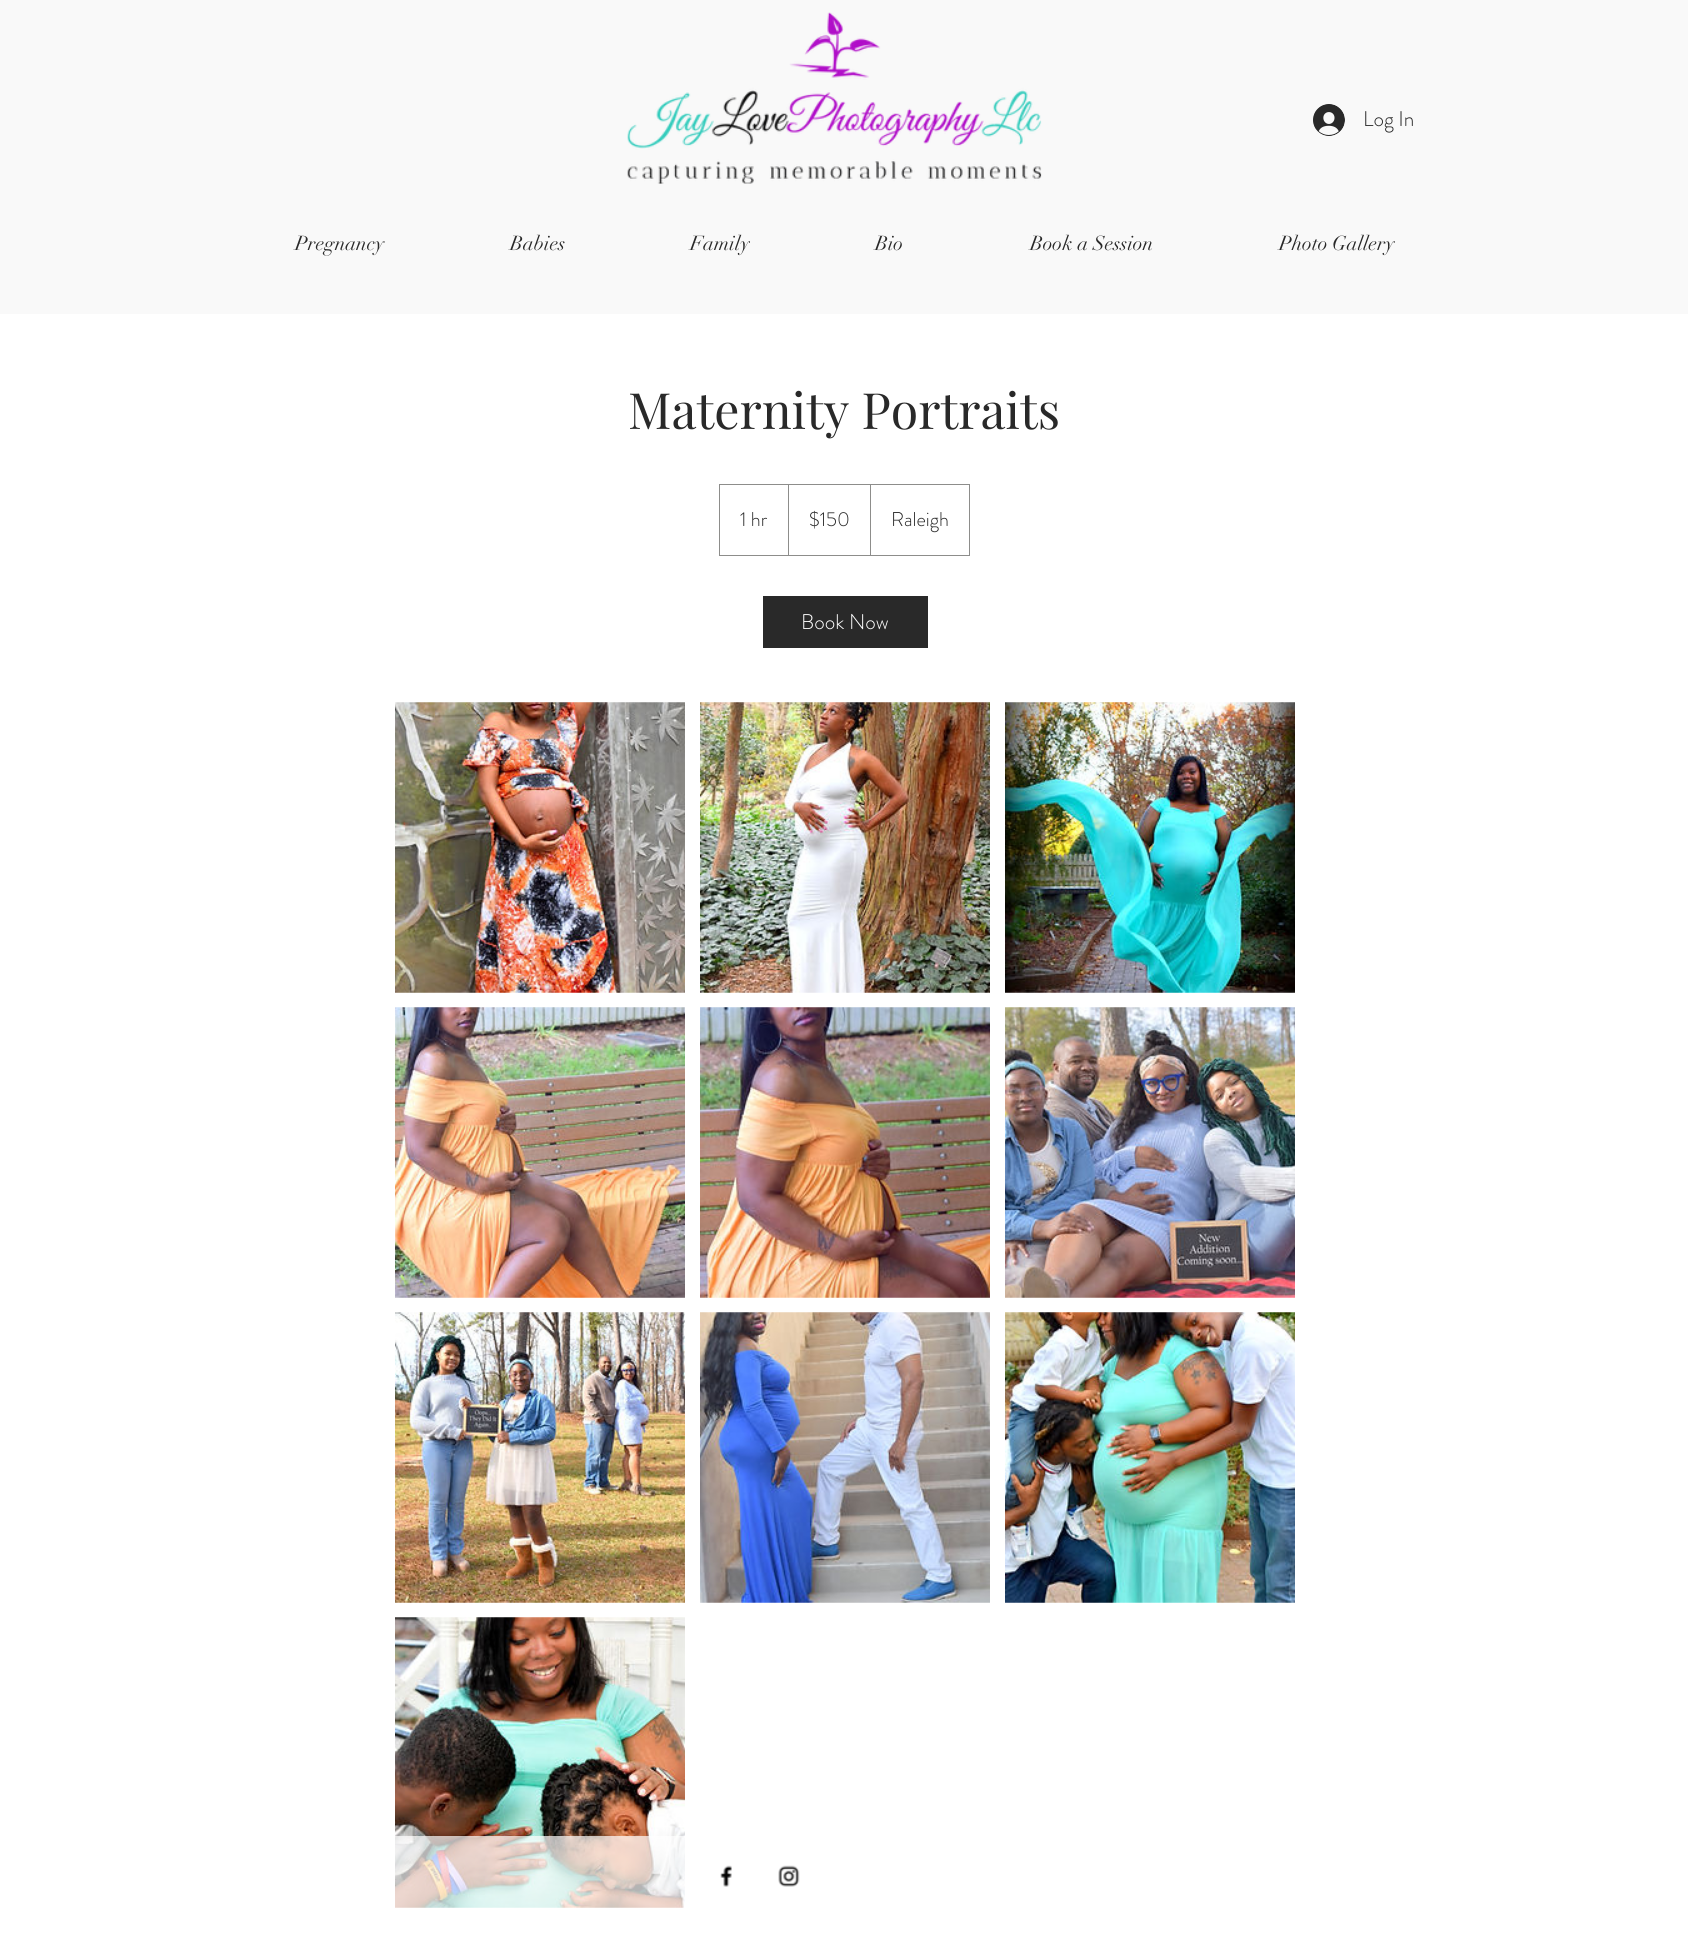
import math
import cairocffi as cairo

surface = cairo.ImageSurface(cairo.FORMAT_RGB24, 1688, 1952)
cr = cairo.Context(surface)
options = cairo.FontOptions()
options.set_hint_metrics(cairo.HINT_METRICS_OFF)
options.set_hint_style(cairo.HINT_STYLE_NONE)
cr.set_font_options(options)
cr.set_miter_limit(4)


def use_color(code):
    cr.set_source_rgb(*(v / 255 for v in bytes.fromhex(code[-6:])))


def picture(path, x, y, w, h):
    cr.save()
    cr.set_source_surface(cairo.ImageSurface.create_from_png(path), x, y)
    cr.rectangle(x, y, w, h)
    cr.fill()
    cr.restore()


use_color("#ffffff")
cr.paint()
use_color("#f9f9f9")
cr.rectangle(0, 0, 1688, 314)
cr.fill()
picture("img1.png", 627, 12, 415, 172)
picture("img2.png", 1313, 104, 32, 32)
cr.select_font_face("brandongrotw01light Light")
cr.set_font_size(21.25)
use_color("#292929")
cr.move_to(1363, 126)
cr.show_text("Log In")
cr.select_font_face("didot")
cr.set_font_size(20)
cr.move_to(295, 250)
cr.show_text("Pregnancy")
cr.move_to(510, 250)
cr.show_text("Babies")
cr.move_to(690, 250)
cr.show_text("Family")
cr.move_to(875, 250)
cr.show_text("Bio")
cr.move_to(1030, 250)
cr.show_text("Book a Session")
cr.move_to(1279, 250)
cr.show_text("Photo Gallery")
cr.select_font_face("Playfair Display")
cr.set_font_size(50)
cr.move_to(628, 429)
cr.show_text("Maternity Portraits")
cr.rectangle(719.5, 484.5, 250, 71)
use_color("#8d8d8b")
cr.set_line_width(1)
cr.stroke()
cr.select_font_face("brandongrotw01light Light")
cr.set_font_size(20)
use_color("#292929")
cr.move_to(740, 526)
cr.show_text("1 hr")
use_color("#8d8d8b")
cr.rectangle(788, 485, 1, 70)
cr.fill()
use_color("#292929")
cr.move_to(809, 526)
cr.show_text("$150")
use_color("#8d8d8b")
cr.rectangle(870, 485, 1, 70)
cr.fill()
use_color("#292929")
cr.move_to(891, 526)
cr.show_text("Raleigh")
cr.rectangle(763, 596, 165, 52)
cr.fill()
cr.set_font_size(21.25)
use_color("#ffffff")
cr.move_to(801, 629)
cr.show_text("Book Now")
picture("img3.png", 395, 702, 290, 291)
picture("img4.png", 395, 702, 290, 291)
picture("img5.png", 700, 702, 290, 291)
picture("img6.png", 700, 702, 290, 291)
picture("img7.png", 1005, 702, 290, 291)
picture("img8.png", 1005, 702, 290, 291)
picture("img9.png", 395, 1007, 290, 291)
picture("img10.png", 395, 1007, 290, 291)
picture("img11.png", 700, 1007, 290, 291)
picture("img12.png", 700, 1007, 290, 291)
picture("img13.png", 1005, 1007, 290, 291)
picture("img14.png", 1005, 1007, 290, 291)
picture("img15.png", 395, 1312, 290, 291)
picture("img16.png", 395, 1312, 290, 291)
picture("img17.png", 700, 1312, 290, 291)
picture("img18.png", 700, 1312, 290, 291)
picture("img19.png", 1005, 1312, 290, 291)
picture("img20.png", 1005, 1312, 290, 291)
picture("img21.png", 395, 1617, 290, 291)
picture("img22.png", 395, 1617, 290, 291)
cr.set_source_rgba(1, 1, 1, 0.7)
cr.rectangle(395, 1836, 290, 72)
cr.fill()
picture("img23.png", 720, 1865, 12, 22)
picture("img24.png", 778, 1865, 22, 22)
surface.write_to_png("result.png")
